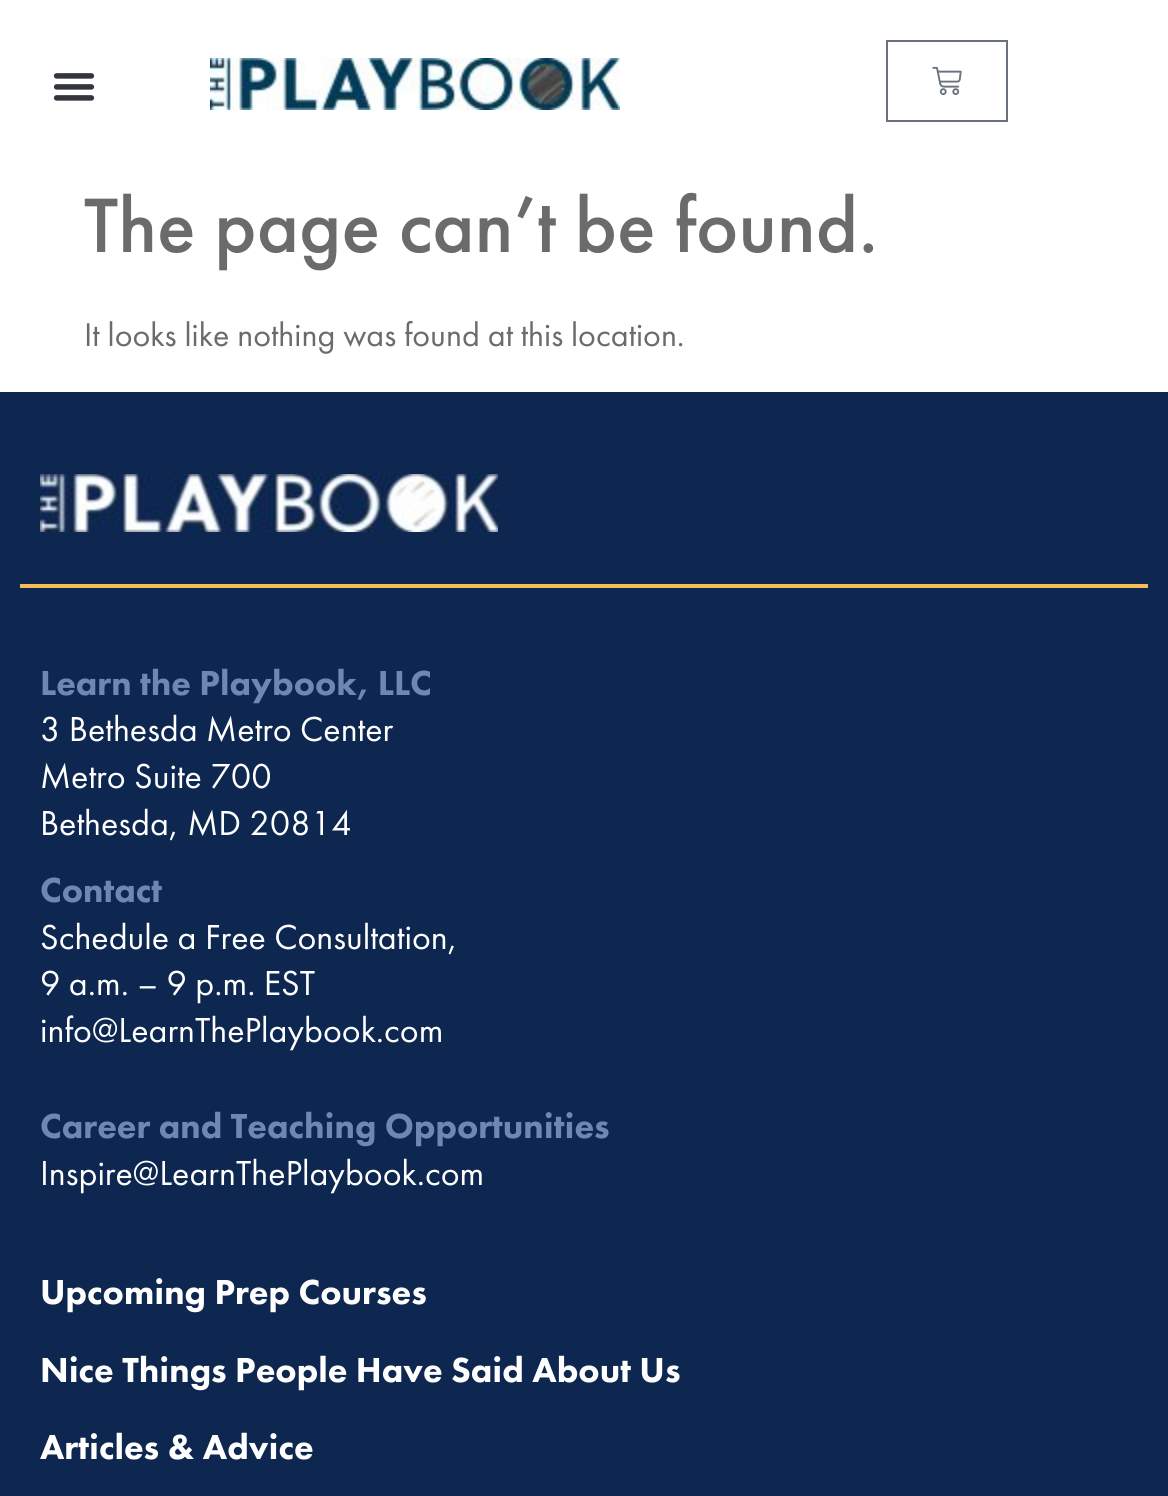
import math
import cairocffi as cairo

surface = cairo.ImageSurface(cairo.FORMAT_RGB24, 1168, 1496)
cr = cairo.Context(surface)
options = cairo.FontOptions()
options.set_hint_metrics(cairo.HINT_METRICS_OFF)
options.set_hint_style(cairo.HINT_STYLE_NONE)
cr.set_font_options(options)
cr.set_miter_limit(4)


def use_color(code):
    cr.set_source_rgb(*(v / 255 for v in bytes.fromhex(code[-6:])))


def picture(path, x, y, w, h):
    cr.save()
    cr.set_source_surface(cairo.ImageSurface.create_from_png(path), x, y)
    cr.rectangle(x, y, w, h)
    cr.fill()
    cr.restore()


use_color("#ffffff")
cr.paint()
picture("img1.png", 53, 73, 42, 28)
picture("img2.png", 210, 58, 410, 52)
cr.rectangle(887, 41, 120, 80)
use_color("#69727d")
cr.stroke()
picture("img3.png", 932, 66, 30, 29)
cr.select_font_face("Futura PT Medium")
cr.set_font_size(80)
use_color("#6b6b6b")
cr.move_to(84, 252)
cr.show_text("The page can’t be found.")
cr.select_font_face("Futura PT")
cr.set_font_size(34)
cr.move_to(84, 346)
cr.show_text("It looks like nothing was found at this location.")
use_color("#0d2750")
cr.rectangle(0, 392, 1168, 1104)
cr.fill()
picture("img4.png", 40, 474, 458, 58)
use_color("#f3bf52")
cr.rectangle(20, 584, 1128, 4)
cr.fill()
cr.select_font_face("Futura PT Black")
cr.set_font_size(36)
use_color("#6d88b3")
cr.move_to(40, 695)
cr.show_text("Learn the Playbook, LLC")
cr.select_font_face("Futura PT")
use_color("#ffffff")
cr.move_to(40, 741)
cr.show_text("3 Bethesda Metro Center")
cr.move_to(40, 788)
cr.show_text("Metro Suite 700")
cr.move_to(40, 835)
cr.show_text("Bethesda, MD 20814")
cr.select_font_face("Futura PT Black")
use_color("#6d88b3")
cr.move_to(40, 902)
cr.show_text("Contact")
cr.select_font_face("Futura PT")
use_color("#ffffff")
cr.move_to(40, 949)
cr.show_text("Schedule a Free Consultation,")
cr.move_to(40, 995)
cr.show_text("9 a.m. – 9 p.m. EST")
cr.move_to(40, 1042)
cr.show_text("info@LearnThePlaybook.com")
cr.select_font_face("Futura PT Black")
use_color("#6d88b3")
cr.move_to(40, 1138)
cr.show_text("Career and Teaching Opportunities")
cr.select_font_face("Futura PT")
use_color("#ffffff")
cr.move_to(40, 1185)
cr.show_text("Inspire@LearnThePlaybook.com")
cr.select_font_face("Futura PT Black")
cr.move_to(40, 1304)
cr.show_text("Upcoming Prep Courses")
cr.move_to(40, 1382)
cr.show_text("Nice Things People Have Said About Us")
cr.move_to(40, 1459)
cr.show_text("Articles & Advice")
surface.write_to_png("result.png")
